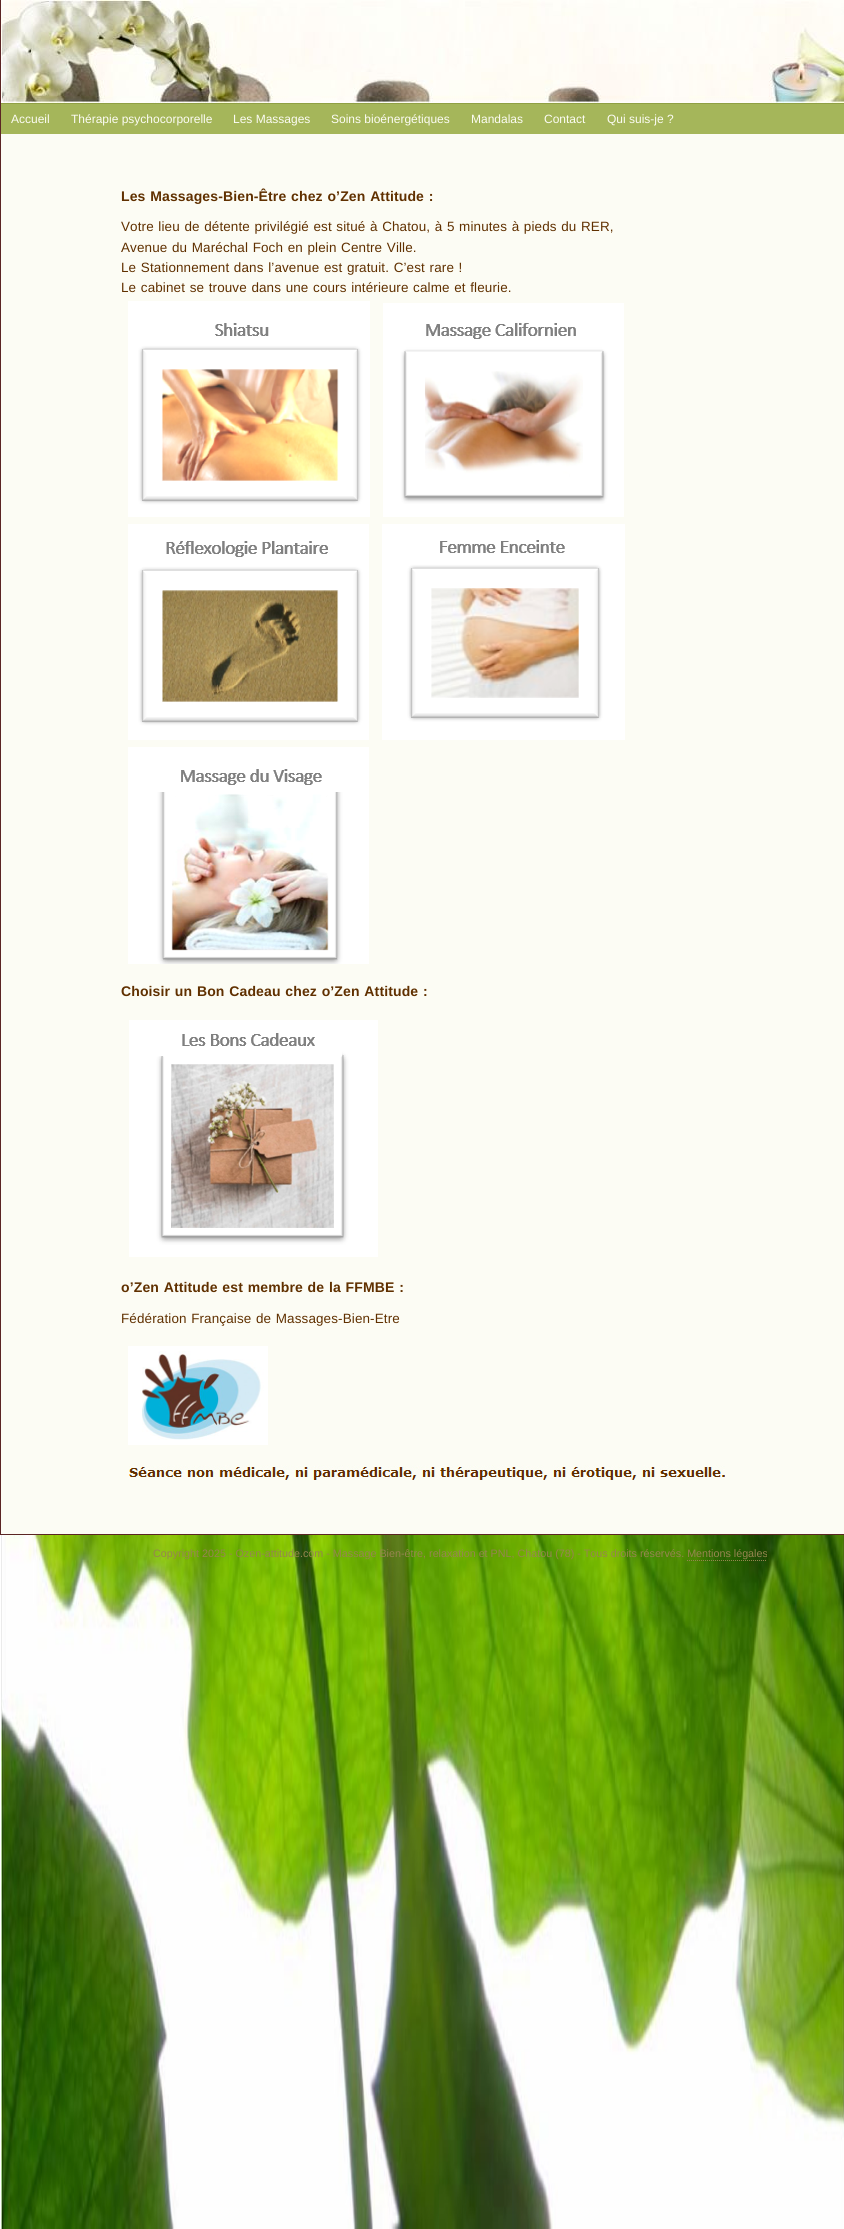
import math
import cairocffi as cairo

surface = cairo.ImageSurface(cairo.FORMAT_RGB24, 844, 2229)
cr = cairo.Context(surface)
options = cairo.FontOptions()
options.set_hint_metrics(cairo.HINT_METRICS_OFF)
options.set_hint_style(cairo.HINT_STYLE_NONE)
cr.set_font_options(options)
cr.set_miter_limit(4)


def use_color(code):
    cr.set_source_rgb(*(v / 255 for v in bytes.fromhex(code[-6:])))


def spaced_text(x, y, s, letter, word):
    cr.move_to(x, y)
    for ch in s:
        cr.show_text(ch)
        cr.rel_move_to(letter + word * (ch == ' '), 0)


def picture(path, x, y, w, h):
    cr.save()
    cr.set_source_surface(cairo.ImageSurface.create_from_png(path), x, y)
    cr.rectangle(x, y, w, h)
    cr.fill()
    cr.restore()


use_color("#ffffff")
cr.paint()
picture("img1.png", 1, 0, 843, 103)
use_color("#a5b65a")
cr.rectangle(1, 104, 843, 30)
cr.fill()
use_color("#90a045")
cr.rectangle(0, 103, 844, 1)
cr.fill()
use_color("#5b2524")
cr.rectangle(0, 0, 1, 134)
cr.fill()
cr.select_font_face("Liberation Sans")
cr.set_font_size(12)
use_color("#fcfcf4")
cr.move_to(11, 123)
cr.show_text("Accueil")
cr.move_to(71, 123)
cr.show_text("Thérapie psychocorporelle")
cr.move_to(233, 123)
cr.show_text("Les Massages")
cr.move_to(331, 123)
cr.show_text("Soins bioénergétiques")
cr.move_to(471, 123)
cr.show_text("Mandalas")
cr.move_to(544, 123)
cr.show_text("Contact")
cr.move_to(607, 123)
cr.show_text("Qui suis-je ?")
use_color("#5b2524")
cr.rectangle(0, 1534, 844, 1)
cr.fill()
cr.rectangle(0, 134, 1, 1401)
cr.fill()
use_color("#fcfcf4")
cr.rectangle(1, 134, 843, 1400)
cr.fill()
cr.select_font_face("Liberation Sans", cairo.FONT_SLANT_NORMAL, cairo.FONT_WEIGHT_BOLD)
cr.set_font_size(14)
use_color("#603000")
spaced_text(121, 201, "Les Massages-Bien-Être chez o’Zen Attitude :", 0.13, 0.7)
cr.select_font_face("Liberation Sans")
cr.set_font_size(13.45)
spaced_text(121, 231, "Votre lieu de détente privilégié est situé à Chatou, à 5 minutes à pieds du RER,", 0.13, 0.7)
spaced_text(121, 252, "Avenue du Maréchal Foch en plein Centre Ville.", 0.13, 0.7)
spaced_text(121, 272, "Le Stationnement dans l’avenue est gratuit. C’est rare !", 0.13, 0.75)
spaced_text(121, 292, "Le cabinet se trouve dans une cours intérieure calme et fleurie.", 0.13, 0.7)
picture("img2.png", 128, 301, 242, 216)
picture("img3.png", 383, 303, 241, 214)
picture("img4.png", 128, 524, 241, 216)
picture("img5.png", 382, 524, 243, 216)
picture("img6.png", 128, 747, 241, 217)
cr.select_font_face("Liberation Sans", cairo.FONT_SLANT_NORMAL, cairo.FONT_WEIGHT_BOLD)
cr.set_font_size(14)
spaced_text(121, 996, "Choisir un Bon Cadeau chez o’Zen Attitude :", 0.13, 0.7)
picture("img7.png", 129, 1020, 249, 237)
spaced_text(121, 1292, "o’Zen Attitude est membre de la FFMBE :", 0.13, 0.7)
cr.select_font_face("Liberation Sans")
cr.set_font_size(13.45)
spaced_text(121, 1323, "Fédération Française de Massages-Bien-Etre", 0.13, 0.7)
picture("img8.png", 128, 1346, 140, 99)
picture("img9.png", 129, 1465, 596, 15)
picture("img10.png", 1, 1535, 843, 694)
cr.set_font_size(10.75)
use_color("#968450")
cr.move_to(153, 1557)
cr.show_text("Copyright 2025 - Ozen-attitude.com - Massage Bien-être, relaxation et PNL, Chatou (78) - Tous droits réservés. Mentions légales")
cr.new_path()
cr.move_to(687, 1560.5)
cr.line_to(767, 1560.5)
cr.set_line_width(1)
cr.set_dash([1, 1])
cr.stroke()
surface.write_to_png("result.png")
